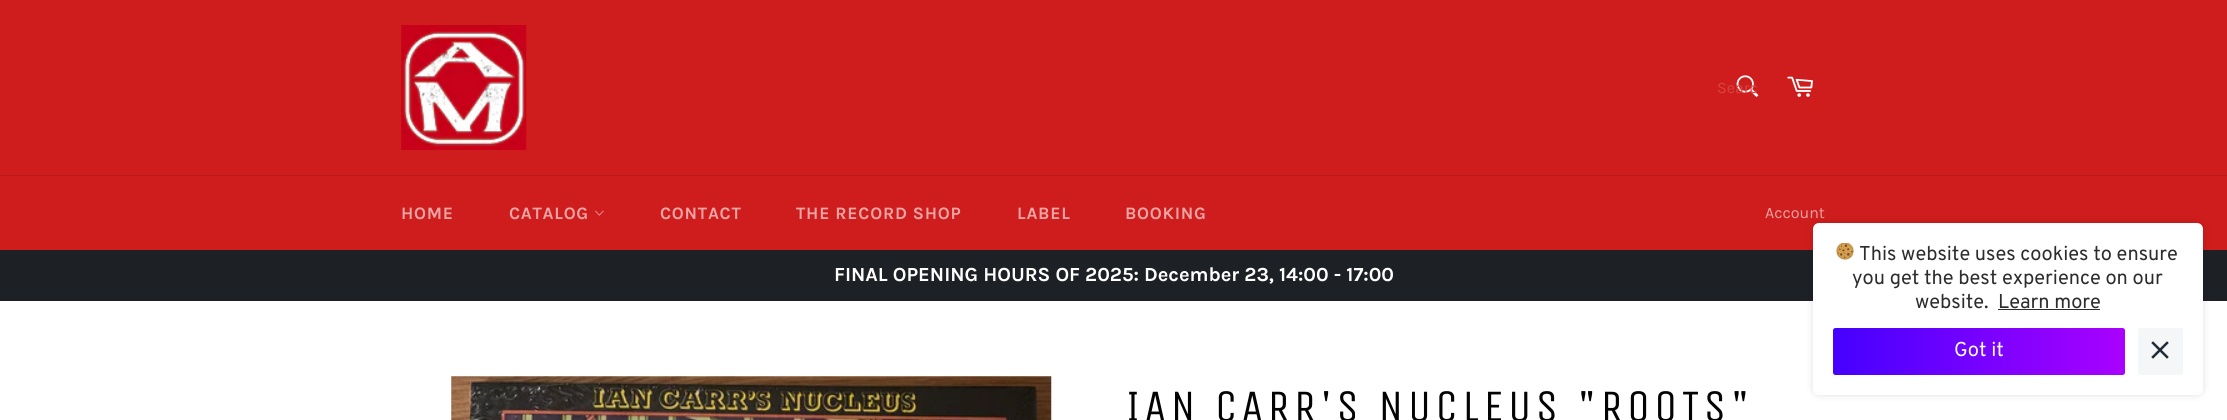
import math
import cairocffi as cairo

surface = cairo.ImageSurface(cairo.FORMAT_RGB24, 2227, 420)
cr = cairo.Context(surface)
options = cairo.FontOptions()
options.set_hint_metrics(cairo.HINT_METRICS_OFF)
options.set_hint_style(cairo.HINT_STYLE_NONE)
cr.set_font_options(options)
cr.set_miter_limit(4)


def use_color(code):
    cr.set_source_rgb(*(v / 255 for v in bytes.fromhex(code[-6:])))


def spaced_text(x, y, s, letter, word):
    cr.move_to(x, y)
    for ch in s:
        cr.show_text(ch)
        cr.rel_move_to(letter + word * (ch == ' '), 0)


def round_rect(x, y, w, h, r):
    cr.new_sub_path()
    for i, (u, v) in enumerate([(x + w - r, y + h - r), (x + r, y + h - r), (x + r, y + r), (x + w - r, y + r)]):
        cr.arc(u, v, r, i * math.pi / 2, (i + 1) * math.pi / 2)
    cr.close_path()


def shadow(x, y, w, h, r, blur, alpha):
    cr.push_group_with_content(cairo.CONTENT_ALPHA)
    cr.set_operator(cairo.OPERATOR_SOURCE)
    for i in range(15, -16, -2):
        e = blur * i / 6
        if min(w, h) + 2 * e > 0:
            cr.set_source_rgba(0, 0, 0, alpha * math.erfc((i - 1) / 8.5) / 2)
            round_rect(x - e, y - e, w + 2 * e, h + 2 * e, max(0, min(r + e + blur * .6, min(w, h) / 2 + e)))
            cr.fill()
    cr.mask(cr.pop_group())


def picture(path, x, y, w, h):
    cr.save()
    cr.set_source_surface(cairo.ImageSurface.create_from_png(path), x, y)
    cr.rectangle(x, y, w, h)
    cr.fill()
    cr.restore()


use_color("#cf1c1c")
cr.paint()
picture("img1.png", 401, 25, 126, 125)
picture("img2.png", 1736, 75, 23, 22)
cr.select_font_face("Karla")
cr.set_font_size(16)
use_color("#d74343")
cr.move_to(1717, 93)
cr.show_text("Searc")
picture("img3.png", 1787, 76, 26, 21)
use_color("#b91919")
cr.rectangle(0, 175, 2227, 1)
cr.fill()
cr.select_font_face("Karla", cairo.FONT_SLANT_NORMAL, cairo.FONT_WEIGHT_BOLD)
cr.set_font_size(17.5)
use_color("#eca4a4")
spaced_text(401, 219, "HOME", 0.75, 0)
spaced_text(509, 219, "CATALOG", 0.75, 0)
picture("img4.png", 595, 210, 9, 6)
spaced_text(660, 219, "CONTACT", 0.75, 0)
spaced_text(796, 219, "THE RECORD SHOP", 0.75, 0)
spaced_text(1017, 219, "LABEL", 0.75, 0)
spaced_text(1125, 219, "BOOKING", 0.75, 0)
cr.select_font_face("Karla")
cr.set_font_size(16)
cr.move_to(1765, 218)
cr.show_text("Account")
use_color("#1d2025")
cr.rectangle(0, 250, 2227, 51)
cr.fill()
cr.select_font_face("Karla", cairo.FONT_SLANT_NORMAL, cairo.FONT_WEIGHT_BOLD)
cr.set_font_size(20)
use_color("#ffffff")
cr.move_to(834, 281)
cr.show_text("FINAL OPENING HOURS OF 2025: December 23, 14:00 - 17:00")
cr.rectangle(0, 301, 2227, 119)
cr.fill()
round_rect(1813, 223, 390, 172, 6)
cr.fill()
cr.save()
cr.set_fill_rule(cairo.FILL_RULE_EVEN_ODD)
cr.new_path()
cr.move_to(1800, 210)
cr.line_to(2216, 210)
cr.line_to(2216, 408)
cr.line_to(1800, 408)
cr.close_path()
cr.move_to(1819, 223)
cr.line_to(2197, 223)
cr.curve_to(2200.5, 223, 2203, 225.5, 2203, 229)
cr.line_to(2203, 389)
cr.curve_to(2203, 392.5, 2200.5, 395, 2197, 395)
cr.line_to(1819, 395)
cr.curve_to(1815.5, 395, 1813, 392.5, 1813, 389)
cr.line_to(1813, 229)
cr.curve_to(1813, 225.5, 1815.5, 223, 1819, 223)
cr.close_path()
cr.clip()
use_color("#000000")
shadow(1813, 223, 390, 172, 6, 4, 0.12)
cr.restore()
picture("img5.png", 1836, 243, 18, 17)
cr.select_font_face("Overpass")
use_color("#2d2d2d")
cr.move_to(1859, 260)
cr.show_text("This website uses cookies to ensure")
cr.move_to(1852, 284)
cr.show_text("you get the best experience on our")
cr.move_to(1915, 308)
cr.show_text("website.")
cr.move_to(1998, 308)
cr.show_text("Learn more")
cr.rectangle(1998, 309, 102, 1)
cr.fill()
gradient = cairo.LinearGradient(1833, 351, 2125, 351)
gradient.add_color_stop_rgba(0, 0.267, 0.004, 1, 1)
gradient.add_color_stop_rgba(1, 0.663, 0.004, 1, 1)
cr.set_source(gradient)
round_rect(1833, 328, 292, 47, 2.5)
cr.fill()
use_color("#ffffff")
cr.move_to(1954, 356)
cr.show_text("Got it")
use_color("#f4f6f8")
round_rect(2138, 328, 45, 47, 2.5)
cr.fill()
picture("img6.png", 2151, 341, 18, 18)
picture("img7.png", 451, 376, 601, 44)
cr.select_font_face("Unica One")
cr.set_font_size(45)
use_color("#030303")
spaced_text(1126, 421, "IAN CARR'S NUCLEUS \"ROOTS\"", 4.5, 0)
surface.write_to_png("result.png")
